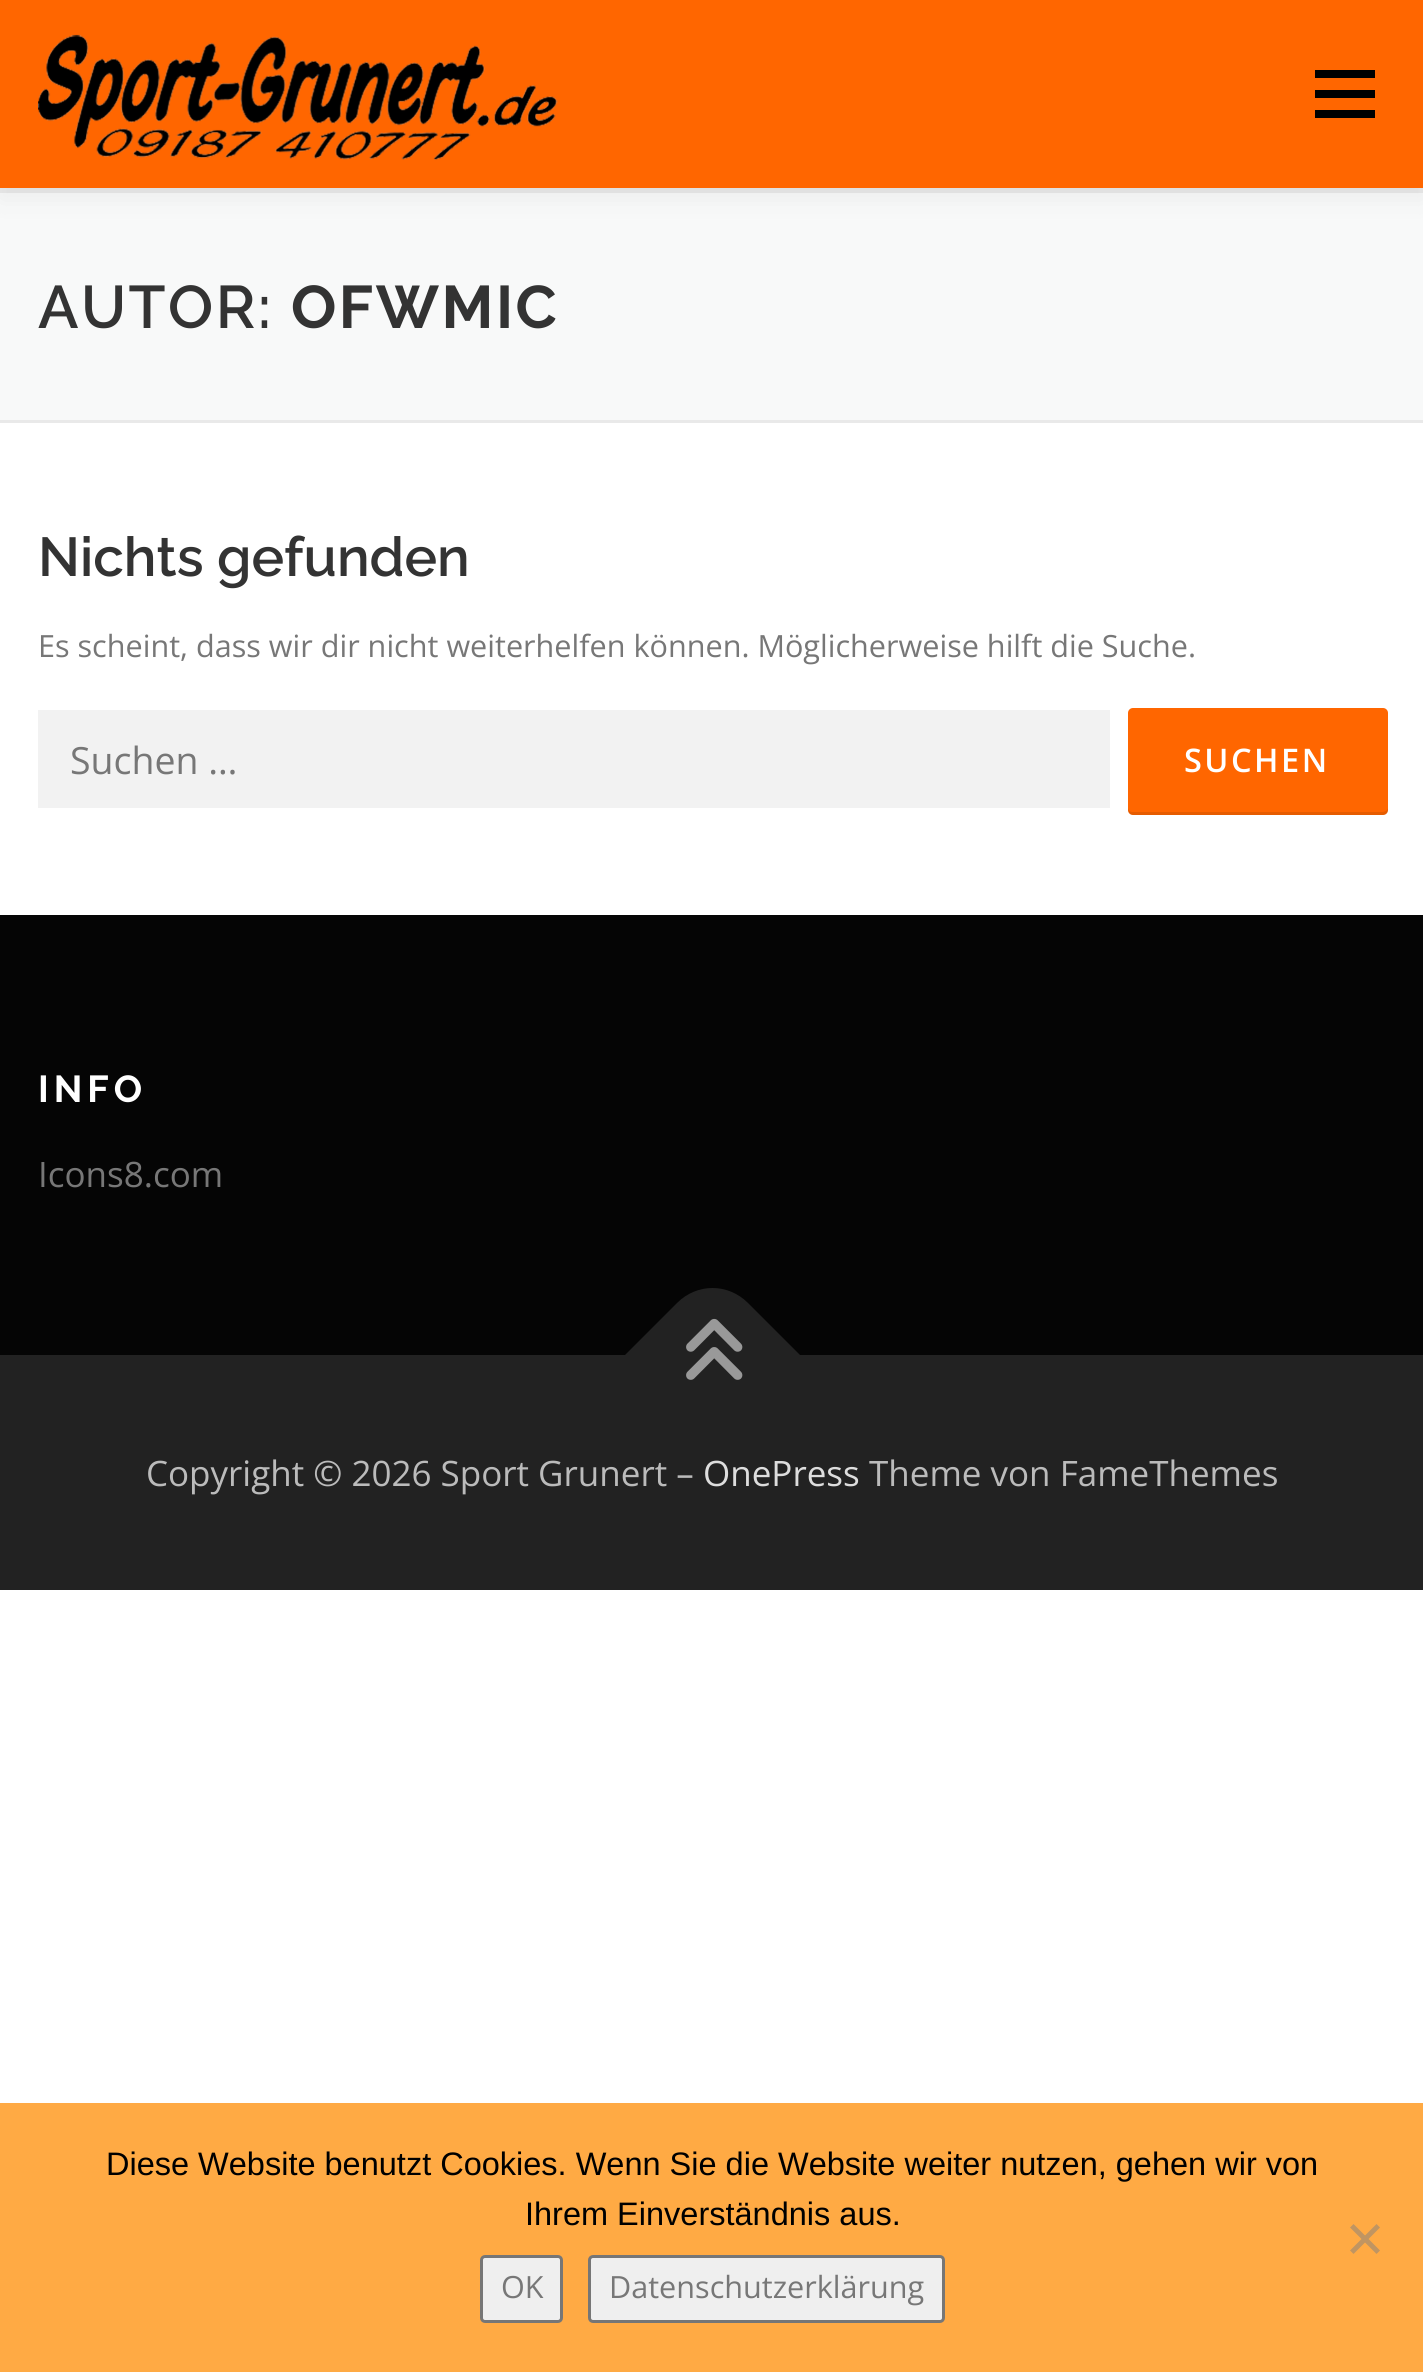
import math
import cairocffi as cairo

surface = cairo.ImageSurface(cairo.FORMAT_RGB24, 1423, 2372)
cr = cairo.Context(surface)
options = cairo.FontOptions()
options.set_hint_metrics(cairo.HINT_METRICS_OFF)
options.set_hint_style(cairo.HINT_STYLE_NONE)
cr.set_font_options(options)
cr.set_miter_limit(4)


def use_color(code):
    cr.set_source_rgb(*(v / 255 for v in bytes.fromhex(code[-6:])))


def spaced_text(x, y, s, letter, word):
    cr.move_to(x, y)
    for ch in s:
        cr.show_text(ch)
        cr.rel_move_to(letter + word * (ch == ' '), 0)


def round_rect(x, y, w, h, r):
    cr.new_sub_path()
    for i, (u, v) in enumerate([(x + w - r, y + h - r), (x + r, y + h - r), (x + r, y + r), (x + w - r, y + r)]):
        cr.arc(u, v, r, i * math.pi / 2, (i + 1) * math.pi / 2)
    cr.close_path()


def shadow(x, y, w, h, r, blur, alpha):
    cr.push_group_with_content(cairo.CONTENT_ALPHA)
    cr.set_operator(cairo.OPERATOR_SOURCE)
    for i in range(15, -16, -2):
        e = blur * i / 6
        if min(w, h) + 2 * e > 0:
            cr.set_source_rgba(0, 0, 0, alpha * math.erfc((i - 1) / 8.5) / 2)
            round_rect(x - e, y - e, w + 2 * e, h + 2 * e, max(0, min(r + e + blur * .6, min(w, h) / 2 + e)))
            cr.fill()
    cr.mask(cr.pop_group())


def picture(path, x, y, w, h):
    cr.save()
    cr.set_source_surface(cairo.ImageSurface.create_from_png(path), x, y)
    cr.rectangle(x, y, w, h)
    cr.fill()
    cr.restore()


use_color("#ffffff")
cr.paint()
use_color("#e9e9e9")
cr.rectangle(0, 188, 1423, 5)
cr.fill()
use_color("#f8f9f9")
cr.rectangle(0, 193, 1423, 227)
cr.fill()
use_color("#323232")
shadow(0, 13, 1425, 187, 0, 12.5, 0.06)
use_color("#ff6600")
cr.rectangle(0, 0, 1423, 188)
cr.fill()
picture("img1.png", 38, 34, 520, 126)
use_color("#000000")
cr.rectangle(1315, 90, 60, 8)
cr.fill()
cr.rectangle(1315, 70, 60, 8)
cr.fill()
cr.rectangle(1315, 110, 60, 8)
cr.fill()
use_color("#e9e9e9")
cr.rectangle(0, 420, 1423, 3)
cr.fill()
cr.select_font_face("Raleway SemiBold")
cr.set_font_size(60)
use_color("#333333")
spaced_text(38, 328, "AUTOR:", 2.5, 0)
cr.select_font_face("Raleway", cairo.FONT_SLANT_NORMAL, cairo.FONT_WEIGHT_BOLD)
spaced_text(291, 328, "OFWMIC", 2.5, 0)
cr.select_font_face("Raleway SemiBold")
cr.set_font_size(54.75)
cr.move_to(38, 576)
cr.show_text("Nichts gefunden")
cr.select_font_face("Open Sans")
cr.set_font_size(30.6)
use_color("#777777")
cr.move_to(38, 657)
cr.show_text("Es scheint, dass wir dir nicht weiterhelfen können. Möglicherweise hilft die Suche.")
use_color("#f2f2f2")
cr.rectangle(38, 710, 1072, 98)
cr.fill()
cr.set_font_size(37.5)
use_color("#777777")
cr.move_to(70, 774)
cr.show_text("Suchen …")
use_color("#ff6600")
round_rect(1128, 708, 260, 107, 5)
cr.fill()
cr.set_source_rgba(0, 0, 0, 0.1)
cr.new_path()
cr.move_to(1128, 808)
cr.line_to(1128, 810)
cr.curve_to(1128, 813, 1130, 815, 1133, 815)
cr.line_to(1383, 815)
cr.curve_to(1386, 815, 1388, 813, 1388, 810)
cr.line_to(1388, 808)
cr.curve_to(1388, 810, 1385, 812, 1382, 812)
cr.line_to(1132, 812)
cr.curve_to(1130, 812, 1128, 810, 1128, 808)
cr.close_path()
cr.fill()
cr.select_font_face("Open Sans SemiBold")
cr.set_font_size(32.5)
use_color("#ffffff")
spaced_text(1184, 772, "SUCHEN", 2.5, 0)
use_color("#050505")
cr.rectangle(0, 915, 1423, 440)
cr.fill()
cr.select_font_face("Raleway", cairo.FONT_SLANT_NORMAL, cairo.FONT_WEIGHT_BOLD)
cr.set_font_size(37.5)
use_color("#ffffff")
spaced_text(38, 1102, "INFO", 5, 0)
cr.select_font_face("Open Sans")
cr.set_font_size(35)
use_color("#777777")
cr.move_to(38, 1187)
cr.show_text("Icons8.com")
use_color("#222222")
cr.rectangle(0, 1355, 1423, 235)
cr.fill()
cr.new_path()
cr.move_to(624, 1356)
cr.line_to(677, 1303)
cr.curve_to(697, 1283, 728, 1283, 748, 1303)
cr.line_to(801, 1356)
cr.line_to(712, 1444)
cr.close_path()
cr.fill()
picture("img2.png", 686, 1318, 57, 62)
use_color("#bbbbbb")
cr.move_to(146, 1486)
cr.show_text("Copyright © 2026 Sport Grunert –")
use_color("#dddddd")
cr.move_to(703, 1486)
cr.show_text("OnePress")
use_color("#bbbbbb")
cr.move_to(869, 1486)
cr.show_text("Theme von FameThemes")
use_color("#ffaa44")
cr.rectangle(0, 2103, 1423, 269)
cr.fill()
cr.select_font_face("Liberation Sans")
cr.set_font_size(32.5)
use_color("#000000")
cr.move_to(106, 2175)
cr.show_text("Diese Website benutzt Cookies. Wenn Sie die Website weiter nutzen, gehen wir von")
cr.move_to(525, 2225)
cr.show_text("Ihrem Einverständnis aus.")
use_color("#c09562")
cr.new_path()
cr.move_to(1376.5, 2224)
cr.line_to(1380, 2227.5)
cr.line_to(1353.5, 2254)
cr.line_to(1350, 2250.5)
cr.close_path()
cr.fill()
cr.new_path()
cr.move_to(1350, 2227.5)
cr.line_to(1353.5, 2224)
cr.line_to(1380, 2250.5)
cr.line_to(1376.5, 2254)
cr.close_path()
cr.fill()
use_color("#efefef")
round_rect(481.5, 2256.5, 80, 65, 3.5)
cr.fill_preserve()
use_color("#767676")
cr.set_line_width(3)
cr.stroke()
cr.select_font_face("Open Sans")
cr.set_font_size(30.6)
use_color("#777777")
cr.move_to(501, 2298)
cr.show_text("OK")
use_color("#efefef")
round_rect(589.5, 2256.5, 354, 65, 3.5)
cr.fill_preserve()
use_color("#767676")
cr.stroke()
use_color("#777777")
cr.move_to(609, 2298)
cr.show_text("Datenschutzerklärung")
surface.write_to_png("result.png")
